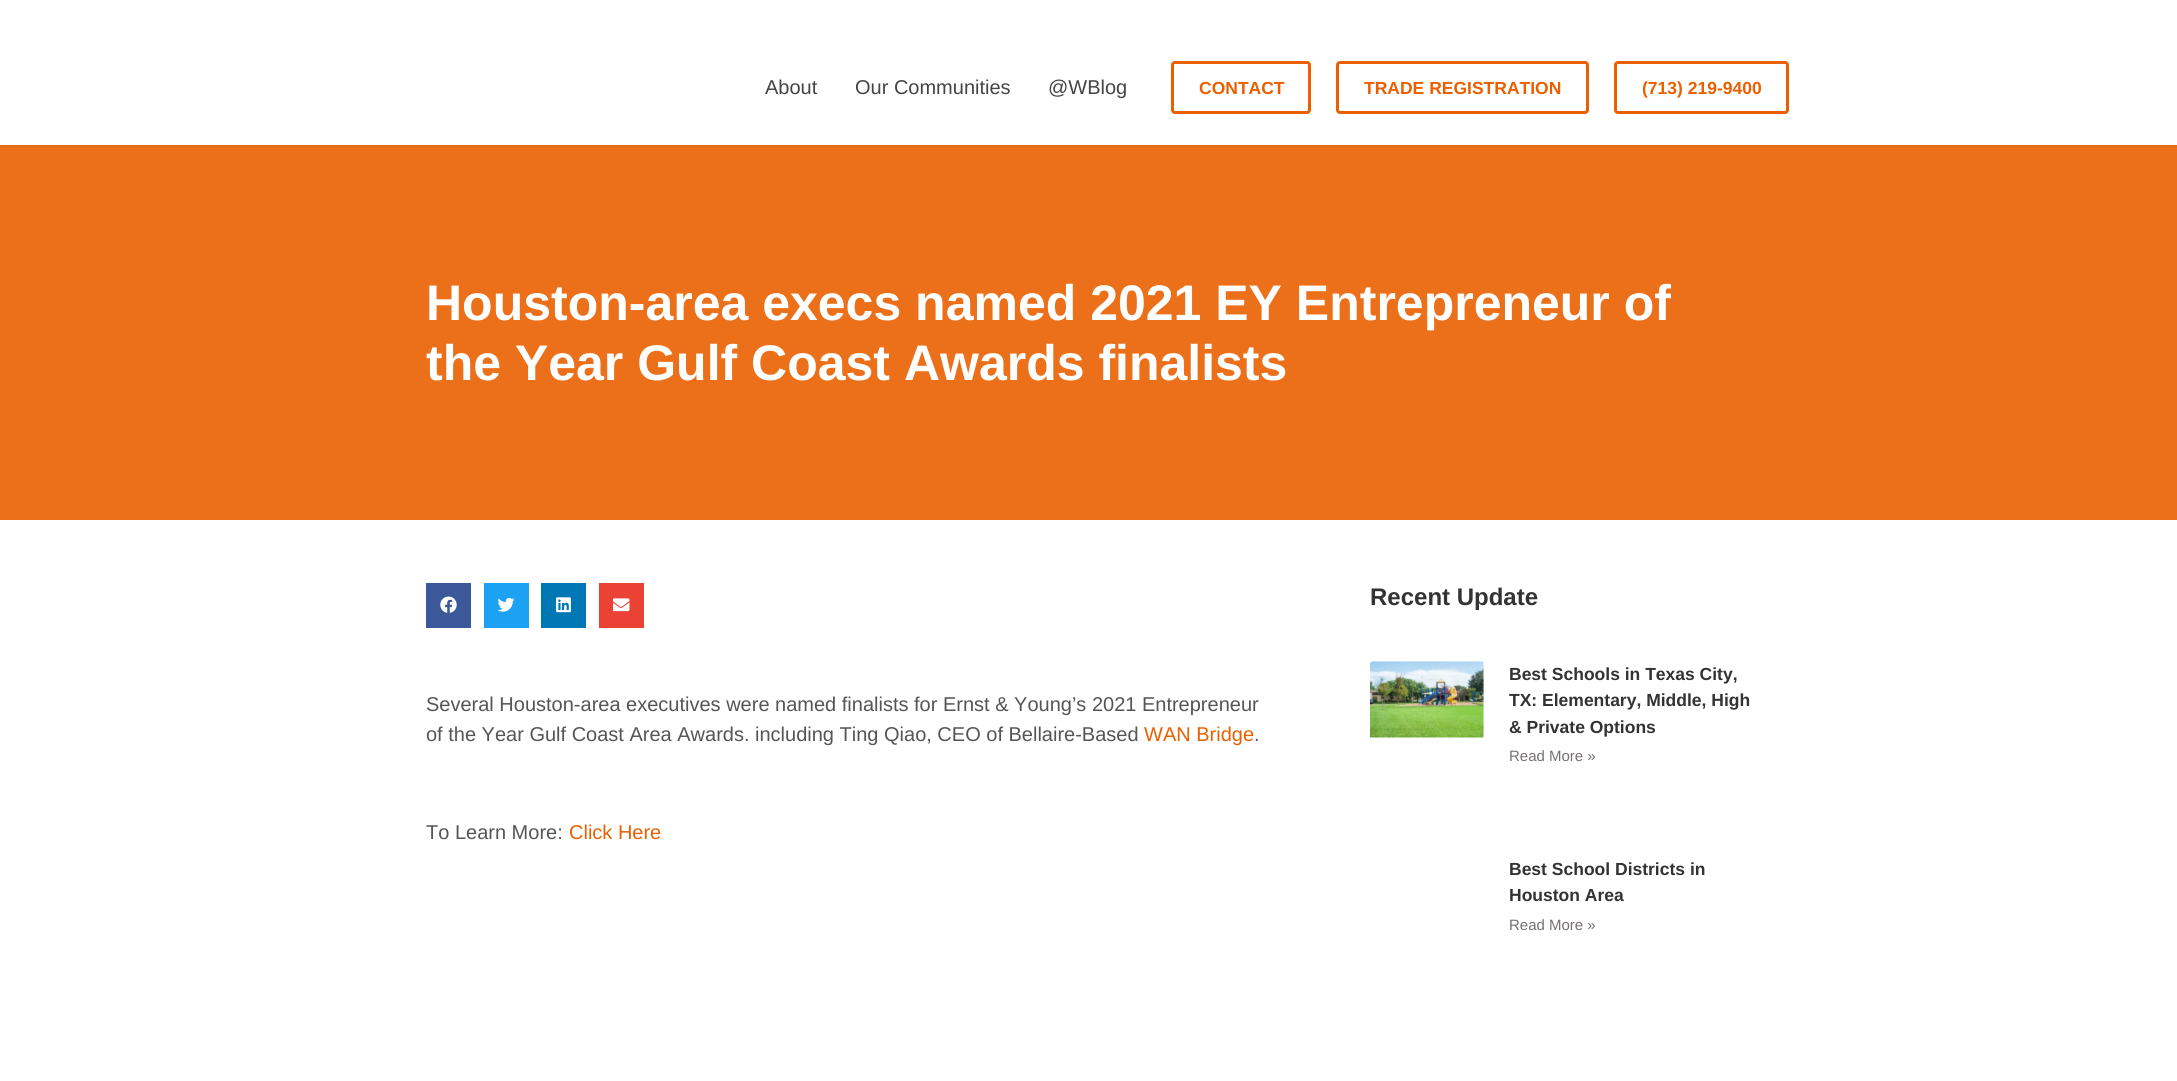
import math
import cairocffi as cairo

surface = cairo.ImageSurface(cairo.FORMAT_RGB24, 2177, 1081)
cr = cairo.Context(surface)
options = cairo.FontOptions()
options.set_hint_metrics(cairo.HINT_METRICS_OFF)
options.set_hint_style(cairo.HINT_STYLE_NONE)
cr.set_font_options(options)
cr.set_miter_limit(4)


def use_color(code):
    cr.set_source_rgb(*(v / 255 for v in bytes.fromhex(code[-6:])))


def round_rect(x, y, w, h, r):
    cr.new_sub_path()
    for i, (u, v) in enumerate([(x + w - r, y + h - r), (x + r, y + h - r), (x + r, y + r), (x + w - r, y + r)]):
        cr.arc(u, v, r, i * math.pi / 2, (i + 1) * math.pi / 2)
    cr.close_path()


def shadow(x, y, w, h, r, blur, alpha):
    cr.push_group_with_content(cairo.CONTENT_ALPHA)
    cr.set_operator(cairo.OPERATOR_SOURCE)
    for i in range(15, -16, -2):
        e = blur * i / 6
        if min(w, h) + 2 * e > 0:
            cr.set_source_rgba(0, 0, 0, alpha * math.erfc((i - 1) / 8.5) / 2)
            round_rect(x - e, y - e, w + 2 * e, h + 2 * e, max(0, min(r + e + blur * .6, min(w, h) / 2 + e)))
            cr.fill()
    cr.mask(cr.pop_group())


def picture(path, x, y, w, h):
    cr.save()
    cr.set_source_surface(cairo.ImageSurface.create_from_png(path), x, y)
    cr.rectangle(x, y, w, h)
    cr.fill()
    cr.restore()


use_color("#ffffff")
cr.paint()
use_color("#ec701a")
cr.rectangle(0, 145, 2177, 375)
cr.fill()
cr.save()
cr.rectangle(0, 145, 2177, 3)
cr.clip()
use_color("#000000")
shadow(0, 33, 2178, 115, 0, 2, 0.05)
cr.restore()
cr.select_font_face("Liberation Sans")
cr.set_font_size(20)
use_color("#444444")
cr.move_to(765, 94)
cr.show_text("About")
cr.move_to(855, 94)
cr.show_text("Our Communities")
cr.move_to(1048, 94)
cr.show_text("@WBlog")
round_rect(1172.5, 62.5, 137, 50, 2.5)
use_color("#ea6000")
cr.set_line_width(3)
cr.stroke()
cr.select_font_face("Liberation Sans", cairo.FONT_SLANT_NORMAL, cairo.FONT_WEIGHT_BOLD)
cr.set_font_size(17.5)
cr.move_to(1199, 94)
cr.show_text("CONTACT")
round_rect(1337.5, 62.5, 250, 50, 2.5)
cr.stroke()
cr.move_to(1364, 94)
cr.show_text("TRADE REGISTRATION")
round_rect(1615.5, 62.5, 172, 50, 2.5)
cr.stroke()
cr.move_to(1642, 94)
cr.show_text("(713) 219-9400")
cr.set_font_size(50)
use_color("#ffffff")
cr.move_to(426, 320)
cr.show_text("Houston-area execs named 2021 EY Entrepreneur of")
cr.move_to(426, 380)
cr.show_text("the Year Gulf Coast Awards finalists")
use_color("#3b5998")
cr.rectangle(426, 583, 45, 45)
cr.fill()
picture("img1.png", 440, 596, 17, 17)
use_color("#1da1f2")
cr.rectangle(484, 583, 45, 45)
cr.fill()
picture("img2.png", 498, 597, 17, 15)
use_color("#0077b5")
cr.rectangle(541, 583, 45, 45)
cr.fill()
picture("img3.png", 556, 597, 15, 16)
use_color("#ea4335")
cr.rectangle(599, 583, 45, 45)
cr.fill()
picture("img4.png", 613, 598, 17, 14)
cr.select_font_face("Liberation Sans")
cr.set_font_size(20)
use_color("#555555")
cr.move_to(426, 711)
cr.show_text("Several Houston-area executives were named finalists for Ernst & Young’s 2021 Entrepreneur")
cr.move_to(426, 741)
cr.show_text("of the Year Gulf Coast Area Awards. including Ting Qiao, CEO of Bellaire-Based")
use_color("#ea6000")
cr.move_to(1144, 741)
cr.show_text("WAN Bridge")
use_color("#555555")
cr.move_to(1254, 741)
cr.show_text(".")
cr.move_to(426, 839)
cr.show_text("To Learn More:")
use_color("#ea6000")
cr.move_to(569, 839)
cr.show_text("Click Here")
cr.select_font_face("Liberation Sans", cairo.FONT_SLANT_NORMAL, cairo.FONT_WEIGHT_BOLD)
cr.set_font_size(24)
use_color("#333333")
cr.move_to(1370, 605)
cr.show_text("Recent Update")
picture("img5.png", 1370, 661, 114, 77)
cr.set_font_size(17.5)
cr.move_to(1509, 680)
cr.show_text("Best Schools in Texas City,")
cr.move_to(1509, 706)
cr.show_text("TX: Elementary, Middle, High")
cr.move_to(1509, 733)
cr.show_text("& Private Options")
cr.select_font_face("Liberation Sans")
cr.set_font_size(15)
use_color("#767171")
cr.move_to(1509, 761)
cr.show_text("Read More »")
cr.select_font_face("Liberation Sans", cairo.FONT_SLANT_NORMAL, cairo.FONT_WEIGHT_BOLD)
cr.set_font_size(17.5)
use_color("#333333")
cr.move_to(1509, 875)
cr.show_text("Best School Districts in")
cr.move_to(1509, 901)
cr.show_text("Houston Area")
cr.select_font_face("Liberation Sans")
cr.set_font_size(15)
use_color("#767171")
cr.move_to(1509, 930)
cr.show_text("Read More »")
surface.write_to_png("result.png")
